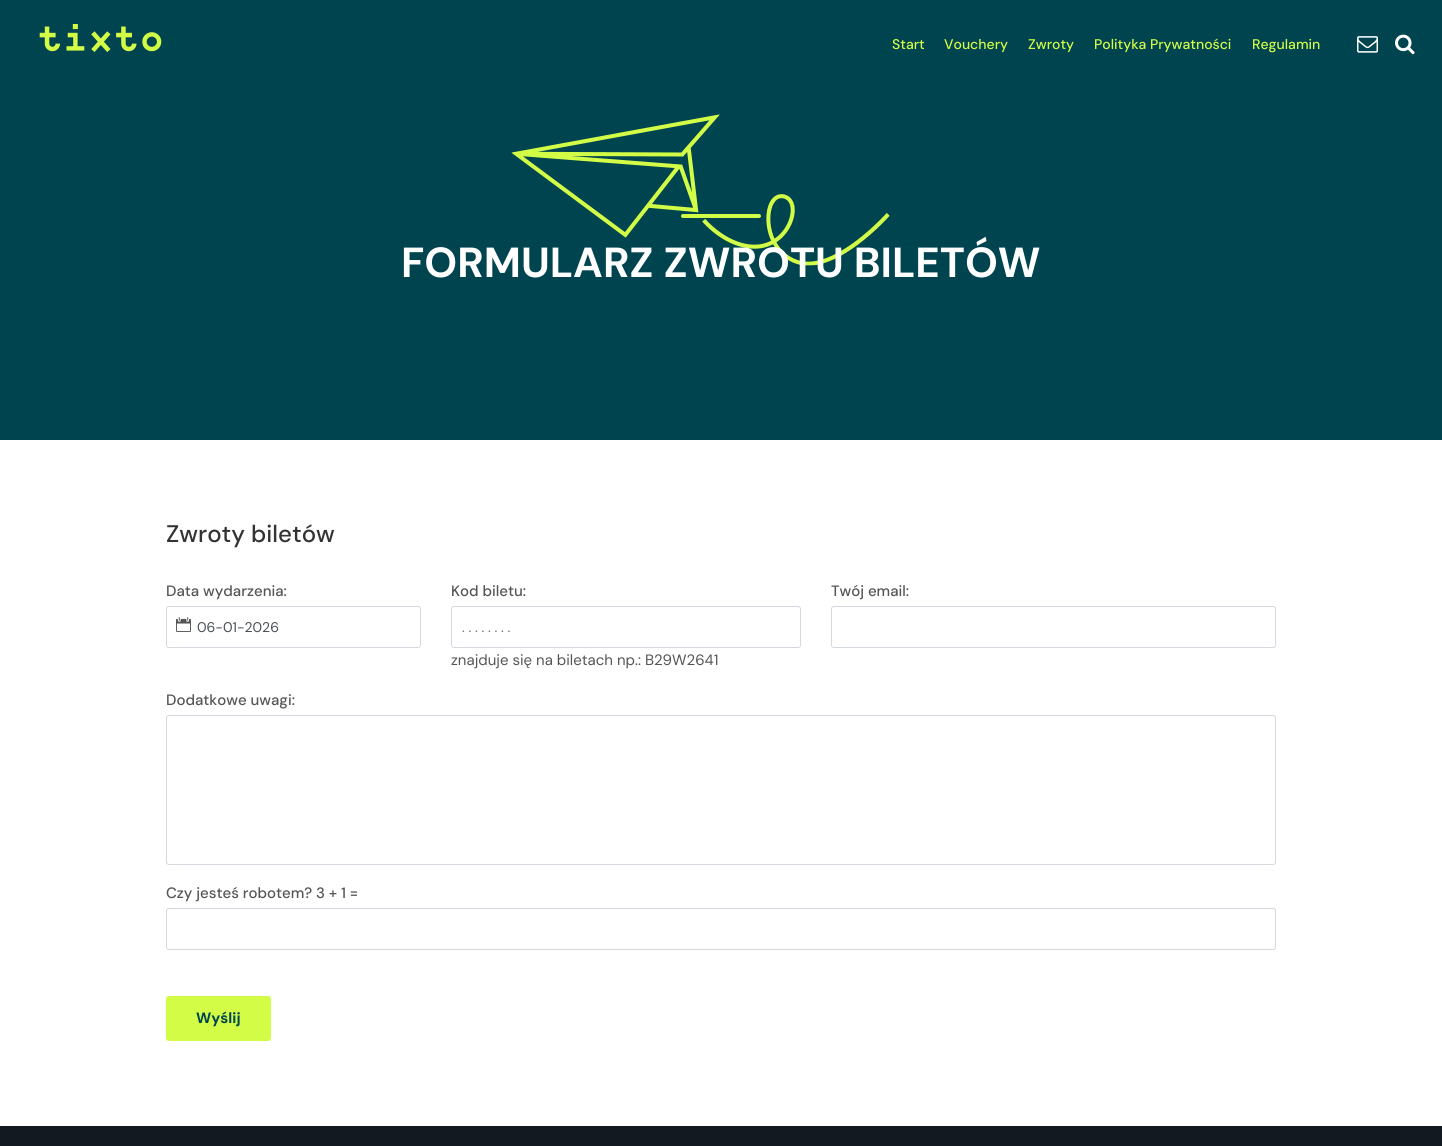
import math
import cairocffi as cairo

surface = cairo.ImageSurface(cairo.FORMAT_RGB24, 1442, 1146)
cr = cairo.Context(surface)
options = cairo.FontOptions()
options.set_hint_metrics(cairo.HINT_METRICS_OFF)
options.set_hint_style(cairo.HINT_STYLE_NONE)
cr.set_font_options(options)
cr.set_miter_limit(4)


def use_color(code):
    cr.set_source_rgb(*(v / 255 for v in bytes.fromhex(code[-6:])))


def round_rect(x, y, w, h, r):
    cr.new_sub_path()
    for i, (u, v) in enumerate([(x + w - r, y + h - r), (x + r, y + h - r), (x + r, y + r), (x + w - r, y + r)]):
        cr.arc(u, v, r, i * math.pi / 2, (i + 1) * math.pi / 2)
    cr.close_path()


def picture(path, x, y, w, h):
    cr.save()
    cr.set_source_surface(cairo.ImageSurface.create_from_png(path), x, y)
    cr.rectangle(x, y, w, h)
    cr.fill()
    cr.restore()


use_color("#121921")
cr.paint()
use_color("#004450")
cr.rectangle(0, 0, 1442, 440)
cr.fill()
picture("img1.png", 39, 24, 123, 28)
cr.select_font_face("DM Sans Medium")
cr.set_font_size(14)
use_color("#d2fc46")
cr.move_to(892, 49)
cr.show_text("Start")
cr.move_to(944, 49)
cr.show_text("Vouchery")
cr.move_to(1028, 49)
cr.show_text("Zwroty")
cr.move_to(1094, 49)
cr.show_text("Polityka Prywatności")
cr.move_to(1252, 49)
cr.show_text("Regulamin")
picture("img2.png", 1357, 36, 21, 17)
picture("img3.png", 1395, 34, 20, 21)
picture("img4.png", 511, 114, 379, 152)
round_rect(681, 214, 80, 4, 2)
cr.fill()
cr.select_font_face("DM Sans", cairo.FONT_SLANT_NORMAL, cairo.FONT_WEIGHT_BOLD)
cr.set_font_size(42)
use_color("#ffffff")
cr.move_to(401, 277)
cr.show_text("FORMULARZ ZWROTU BILETÓW")
cr.rectangle(0, 440, 1442, 686)
cr.fill()
cr.select_font_face("DM Sans Medium")
cr.set_font_size(24)
use_color("#333333")
cr.move_to(166, 542)
cr.show_text("Zwroty biletów")
cr.set_font_size(15)
use_color("#555555")
cr.move_to(166, 596)
cr.show_text("Data wydarzenia:")
round_rect(166.5, 606.5, 254, 41, 2.5)
use_color("#d2d8dd")
cr.set_line_width(1)
cr.stroke()
picture("img5.png", 176, 617, 15, 15)
cr.select_font_face("DM Sans")
cr.set_font_size(14)
use_color("#495057")
cr.move_to(197, 632)
cr.show_text("06-01-2026")
cr.select_font_face("DM Sans Medium")
cr.set_font_size(15)
use_color("#555555")
cr.move_to(451, 596)
cr.show_text("Kod biletu:")
round_rect(451.5, 606.5, 349, 41, 2.5)
use_color("#d2d8dd")
cr.stroke()
cr.select_font_face("DM Sans")
cr.set_font_size(14)
use_color("#6c757d")
cr.move_to(462, 632)
cr.show_text(". . . . . . . .")
cr.set_font_size(15)
use_color("#555555")
cr.move_to(451, 665)
cr.show_text("znajduje się na biletach np.: B29W2641")
cr.select_font_face("DM Sans Medium")
cr.move_to(831, 596)
cr.show_text("Twój email:")
round_rect(831.5, 606.5, 444, 41, 2.5)
use_color("#d2d8dd")
cr.stroke()
use_color("#555555")
cr.move_to(166, 705)
cr.show_text("Dodatkowe uwagi:")
round_rect(166.5, 715.5, 1109, 149, 2.5)
use_color("#d2d8dd")
cr.stroke()
use_color("#555555")
cr.move_to(166, 898)
cr.show_text("Czy jesteś robotem? 3 + 1 =")
round_rect(166.5, 908.5, 1109, 41, 2.5)
use_color("#d2d8dd")
cr.stroke()
use_color("#d2fc46")
round_rect(166, 996, 105, 45, 3)
cr.fill()
cr.select_font_face("DM Sans", cairo.FONT_SLANT_NORMAL, cairo.FONT_WEIGHT_BOLD)
use_color("#004450")
cr.move_to(196, 1023)
cr.show_text("Wyślij")
surface.write_to_png("result.png")
